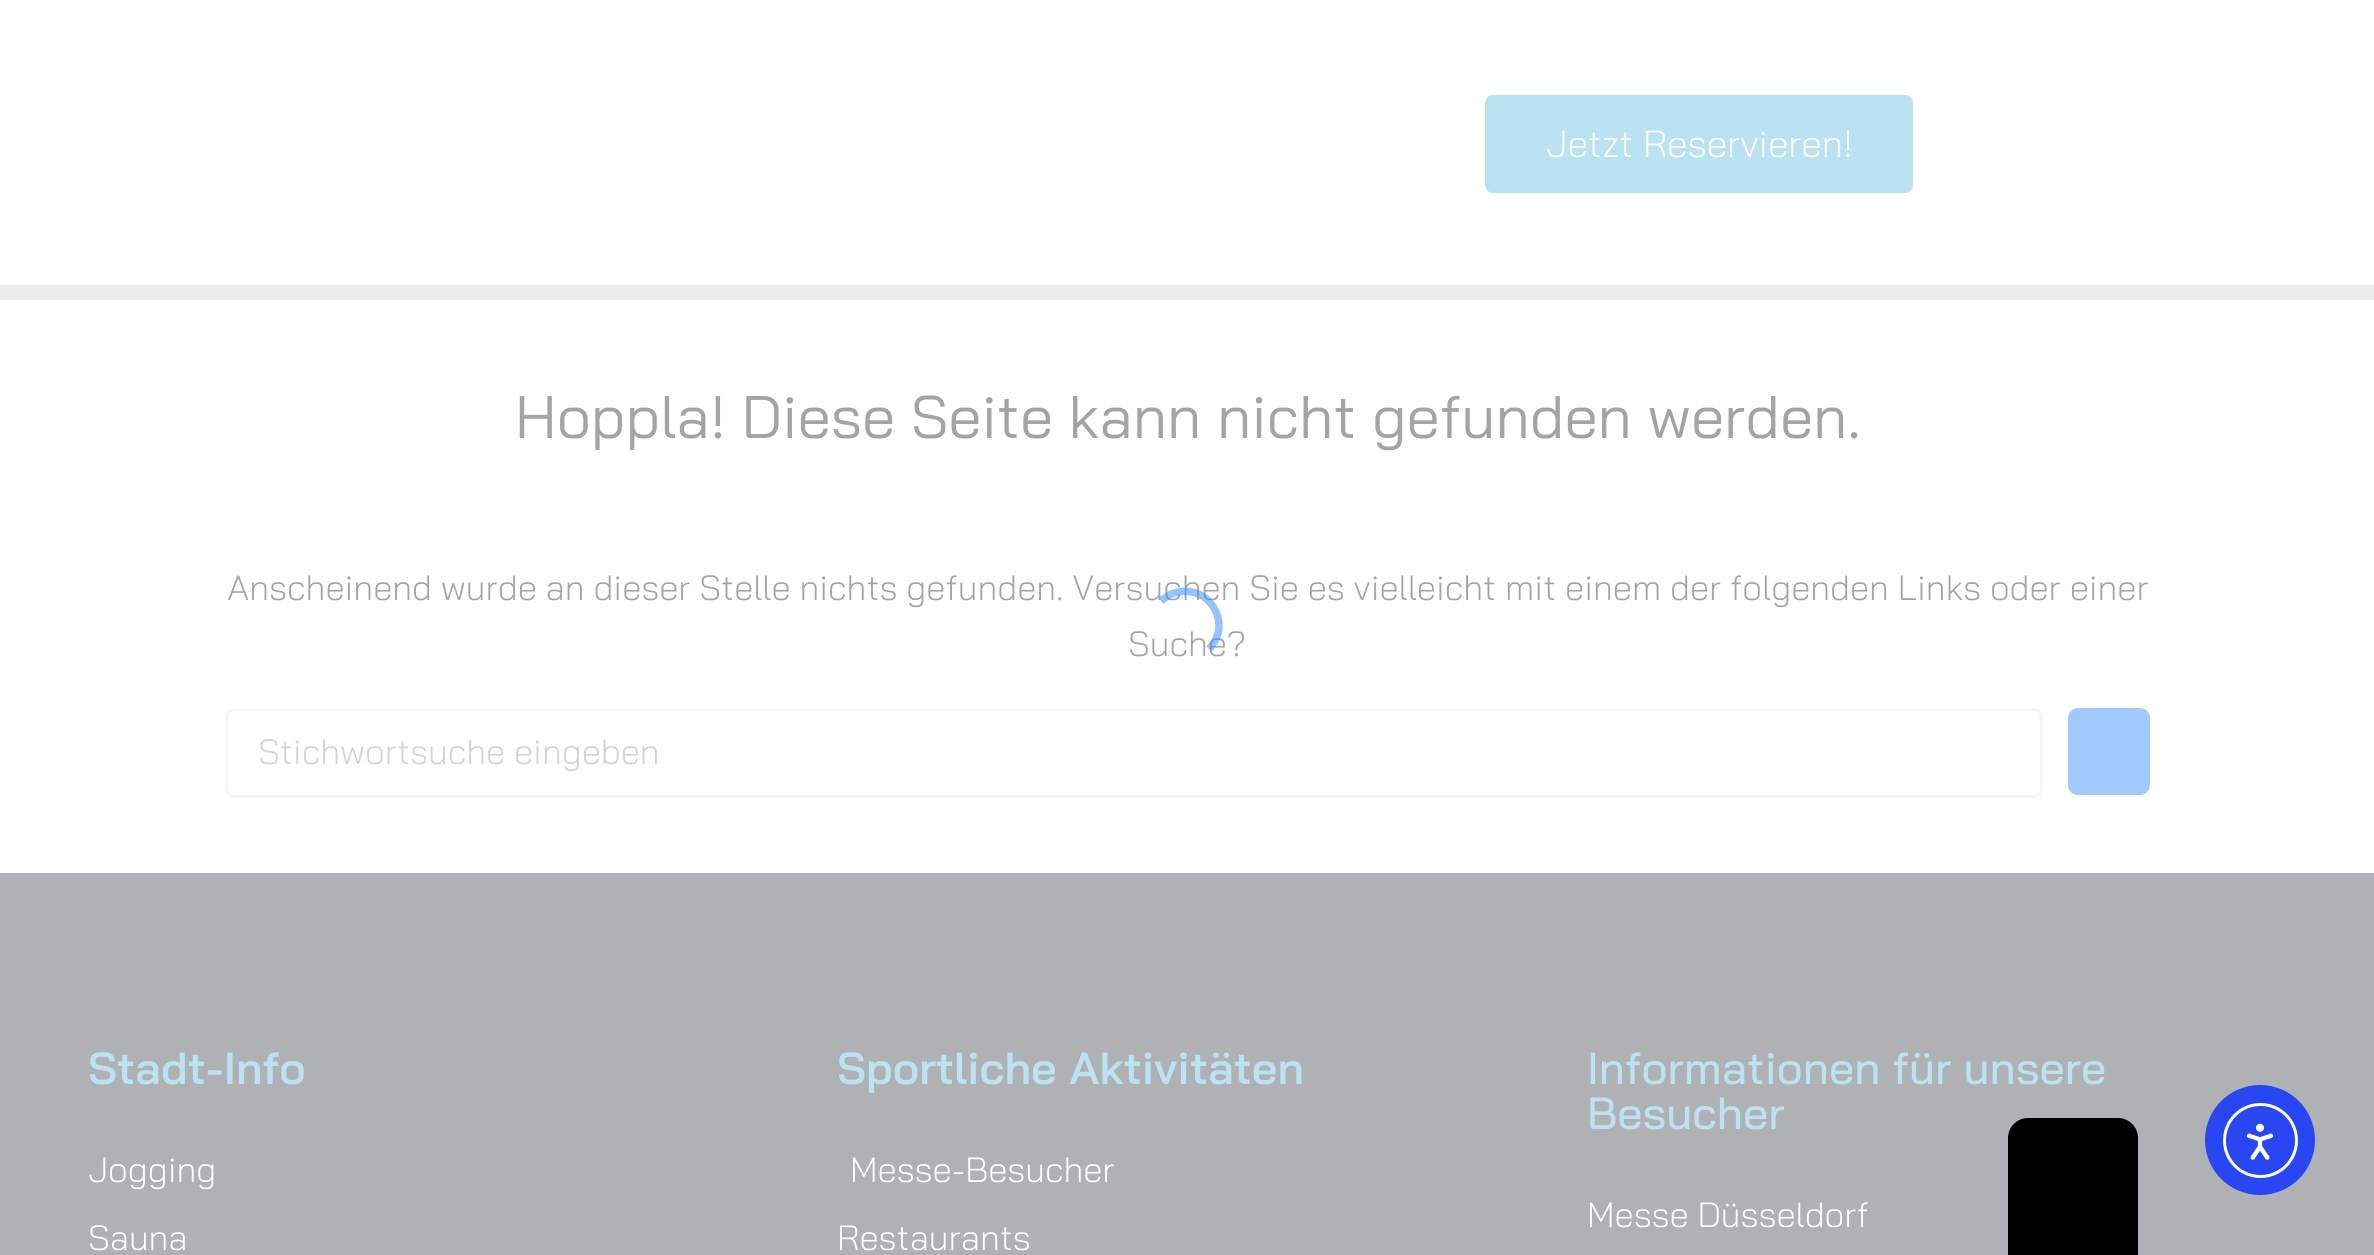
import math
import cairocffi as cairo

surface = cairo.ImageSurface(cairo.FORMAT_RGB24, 2374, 1255)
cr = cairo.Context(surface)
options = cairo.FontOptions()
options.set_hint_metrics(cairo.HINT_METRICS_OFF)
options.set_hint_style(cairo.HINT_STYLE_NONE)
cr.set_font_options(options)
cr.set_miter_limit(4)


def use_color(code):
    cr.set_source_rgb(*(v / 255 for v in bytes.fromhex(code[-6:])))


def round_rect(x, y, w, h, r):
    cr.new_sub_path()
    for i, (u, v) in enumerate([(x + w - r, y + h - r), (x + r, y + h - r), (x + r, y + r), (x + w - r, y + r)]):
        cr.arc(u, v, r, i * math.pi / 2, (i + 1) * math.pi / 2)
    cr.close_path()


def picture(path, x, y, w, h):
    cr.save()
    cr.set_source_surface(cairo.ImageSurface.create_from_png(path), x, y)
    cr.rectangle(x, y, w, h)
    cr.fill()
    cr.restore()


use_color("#ffffff")
cr.paint()
use_color("#ececec")
cr.rectangle(0, 285, 2374, 15)
cr.fill()
use_color("#bbe2f2")
round_rect(1485, 95, 428, 98, 8)
cr.fill()
cr.select_font_face("Bai Jamjuree Light")
cr.set_font_size(37.5)
use_color("#ffffff")
cr.move_to(1546, 157)
cr.show_text("Jetzt Reservieren!")
cr.select_font_face("Bai Jamjuree")
cr.set_font_size(60)
use_color("#a3a4a6")
cr.move_to(515, 438)
cr.show_text("Hoppla! Diese Seite kann nicht gefunden werden.")
cr.select_font_face("Bai Jamjuree Light")
cr.set_font_size(35)
cr.move_to(227, 600)
cr.show_text("Anscheinend wurde an dieser Stelle nichts gefunden. Versuchen Sie es vielleicht mit einem der folgenden Links oder einer")
cr.move_to(1128, 656)
cr.show_text("Suche?")
round_rect(226.5, 709.5, 1815, 87, 8.5)
use_color("#f6f6f7")
cr.set_line_width(3)
cr.stroke()
use_color("#d3d3d4")
cr.move_to(258, 764)
cr.show_text("Stichwortsuche eingeben")
use_color("#a2cafe")
round_rect(2068, 708, 82, 87, 10)
cr.fill()
use_color("#afb1b4")
cr.rectangle(0, 873, 2374, 382)
cr.fill()
cr.select_font_face("Bai Jamjuree SemiBold")
cr.set_font_size(45)
use_color("#bbe2f2")
cr.move_to(88, 1084)
cr.show_text("Stadt-Info")
cr.select_font_face("Bai Jamjuree Light")
cr.set_font_size(35)
use_color("#ffffff")
cr.move_to(88, 1182)
cr.show_text("Jogging")
cr.move_to(88, 1250)
cr.show_text("Sauna")
cr.select_font_face("Bai Jamjuree SemiBold")
cr.set_font_size(45)
use_color("#bbe2f2")
cr.move_to(837, 1084)
cr.show_text("Sportliche Aktivitäten")
cr.select_font_face("Bai Jamjuree Light")
cr.set_font_size(35)
use_color("#ffffff")
cr.move_to(850, 1182)
cr.show_text("Messe-Besucher")
cr.move_to(837, 1250)
cr.show_text("Restaurants")
cr.select_font_face("Bai Jamjuree Medium")
cr.set_font_size(45)
use_color("#bbe2f2")
cr.move_to(1587, 1084)
cr.show_text("Informationen für unsere")
cr.move_to(1587, 1129)
cr.show_text("Besucher")
cr.select_font_face("Bai Jamjuree Light")
cr.set_font_size(35)
use_color("#ffffff")
cr.move_to(1587, 1227)
cr.show_text("Messe Düsseldorf")
cr.new_path()
cr.move_to(1161, 601)
cr.curve_to(1166, 596.5, 1172, 593, 1178.5, 592)
cr.curve_to(1211, 585.5, 1232.5, 625.5, 1209, 649)
cr.set_source_rgba(0.224, 0.561, 0.988, 0.53)
cr.set_line_width(7.5)
cr.stroke()
use_color("#000000")
cr.new_path()
cr.move_to(2028, 1118)
cr.line_to(2118, 1118)
cr.curve_to(2129, 1118, 2138, 1127, 2138, 1138)
cr.line_to(2138, 1255)
cr.line_to(2008, 1255)
cr.line_to(2008, 1138)
cr.curve_to(2008, 1127, 2017, 1118, 2028, 1118)
cr.close_path()
cr.fill()
use_color("#2847f3")
cr.arc(2260, 1140, 55, 0, 2 * math.pi)
cr.fill()
cr.arc(2260.5, 1140.5, 36, 0, 2 * math.pi)
use_color("#ffffff")
cr.set_line_width(3)
cr.stroke()
picture("img1.png", 2246, 1123, 28, 37)
surface.write_to_png("result.png")
